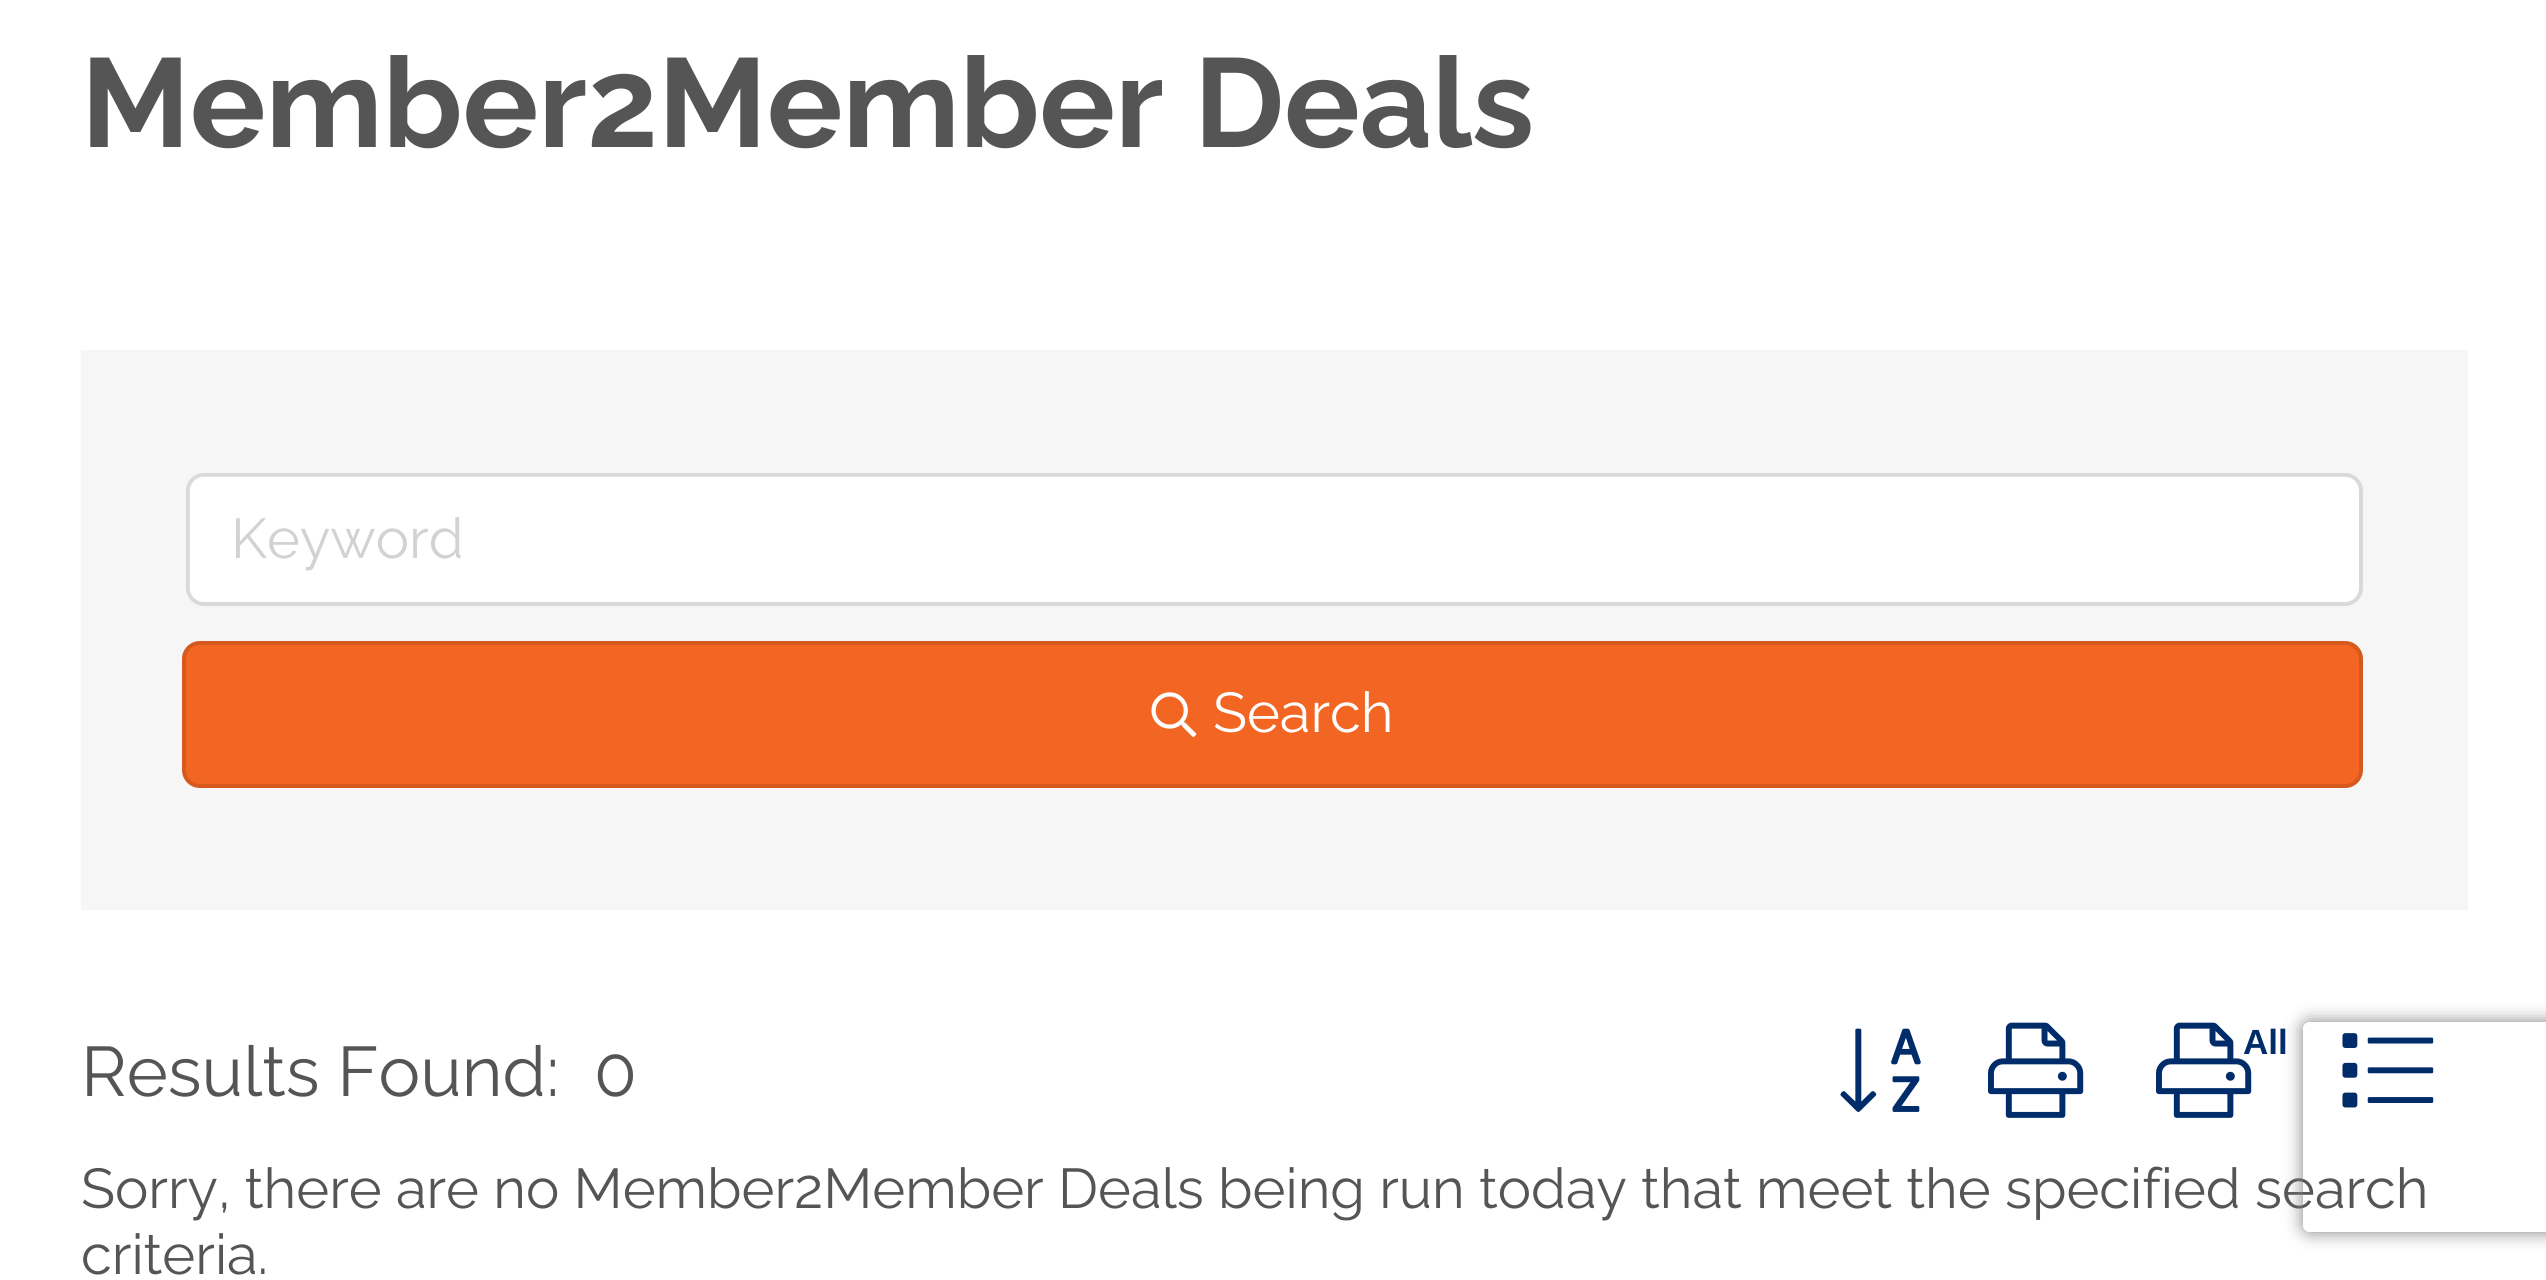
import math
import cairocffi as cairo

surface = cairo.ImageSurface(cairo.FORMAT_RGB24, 2546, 1280)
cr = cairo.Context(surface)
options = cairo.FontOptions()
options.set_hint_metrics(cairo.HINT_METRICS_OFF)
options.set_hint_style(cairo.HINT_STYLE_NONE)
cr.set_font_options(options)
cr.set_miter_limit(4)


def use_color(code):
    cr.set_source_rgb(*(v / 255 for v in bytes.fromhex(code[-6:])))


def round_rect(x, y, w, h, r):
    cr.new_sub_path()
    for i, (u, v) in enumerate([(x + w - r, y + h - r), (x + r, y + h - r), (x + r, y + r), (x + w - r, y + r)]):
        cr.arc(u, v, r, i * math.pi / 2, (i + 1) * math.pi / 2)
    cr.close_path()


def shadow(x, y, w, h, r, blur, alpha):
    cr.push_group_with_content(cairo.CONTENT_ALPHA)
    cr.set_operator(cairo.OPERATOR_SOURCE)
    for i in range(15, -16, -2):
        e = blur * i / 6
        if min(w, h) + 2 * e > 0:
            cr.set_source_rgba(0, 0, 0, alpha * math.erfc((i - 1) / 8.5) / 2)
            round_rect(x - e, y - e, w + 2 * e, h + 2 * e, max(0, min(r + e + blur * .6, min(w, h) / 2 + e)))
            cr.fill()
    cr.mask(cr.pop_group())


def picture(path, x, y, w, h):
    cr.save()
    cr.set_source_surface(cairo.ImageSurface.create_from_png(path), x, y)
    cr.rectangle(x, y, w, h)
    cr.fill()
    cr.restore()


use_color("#ffffff")
cr.paint()
cr.select_font_face("Raleway", cairo.FONT_SLANT_NORMAL, cairo.FONT_WEIGHT_BOLD)
cr.set_font_size(126)
use_color("#555555")
cr.move_to(81, 147)
cr.show_text("Member2Member Deals")
use_color("#f6f6f6")
cr.rectangle(81, 350, 2387, 560)
cr.fill()
use_color("#ffffff")
round_rect(189, 476, 2170, 126, 14)
cr.fill()
round_rect(188, 475, 2173, 129, 16)
cr.set_source_rgba(0, 0, 0, 0.12)
cr.set_line_width(4)
cr.stroke()
cr.select_font_face("Raleway")
cr.set_font_size(56)
use_color("#d2d2d2")
cr.move_to(231, 558)
cr.show_text("Keyword")
use_color("#f26522")
round_rect(182, 641, 2181, 147, 18)
cr.fill()
round_rect(184, 643, 2177, 143, 16)
cr.set_source_rgba(0, 0, 0, 0.12)
cr.stroke()
picture("img1.png", 1151, 692, 46, 46)
use_color("#ffffff")
cr.move_to(1213, 732)
cr.show_text("Search")
picture("img2.png", 1840, 1028, 81, 84)
picture("img3.png", 1988, 1022, 96, 96)
picture("img3.png", 2156, 1022, 96, 96)
cr.select_font_face("Liberation Sans", cairo.FONT_SLANT_NORMAL, cairo.FONT_WEIGHT_BOLD)
cr.set_font_size(35)
use_color("#002d6a")
cr.move_to(2243, 1054)
cr.show_text("All")
picture("img4.png", 2342, 1033, 92, 75)
cr.select_font_face("Raleway")
cr.set_font_size(70)
use_color("#555555")
cr.move_to(81, 1096)
cr.show_text("Results Found:")
cr.move_to(594, 1096)
cr.show_text("0")
cr.set_font_size(56)
cr.move_to(81, 1208)
cr.show_text("Sorry, there are no Member2Member Deals being run today that meet the specified search")
cr.move_to(81, 1274)
cr.show_text("criteria.")
cr.save()
cr.set_fill_rule(cairo.FILL_RULE_EVEN_ODD)
cr.new_path()
cr.move_to(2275, 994)
cr.line_to(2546, 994)
cr.line_to(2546, 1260)
cr.line_to(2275, 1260)
cr.close_path()
cr.move_to(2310, 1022)
cr.line_to(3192, 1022)
cr.curve_to(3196, 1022, 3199, 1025, 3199, 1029)
cr.line_to(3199, 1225)
cr.curve_to(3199, 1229, 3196, 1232, 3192, 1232)
cr.line_to(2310, 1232)
cr.curve_to(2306, 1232, 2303, 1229, 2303, 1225)
cr.line_to(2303, 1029)
cr.curve_to(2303, 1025, 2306, 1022, 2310, 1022)
cr.close_path()
cr.clip()
use_color("#808080")
shadow(2303, 1022, 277, 210, 7, 9, 1)
cr.restore()
surface.write_to_png("result.png")
